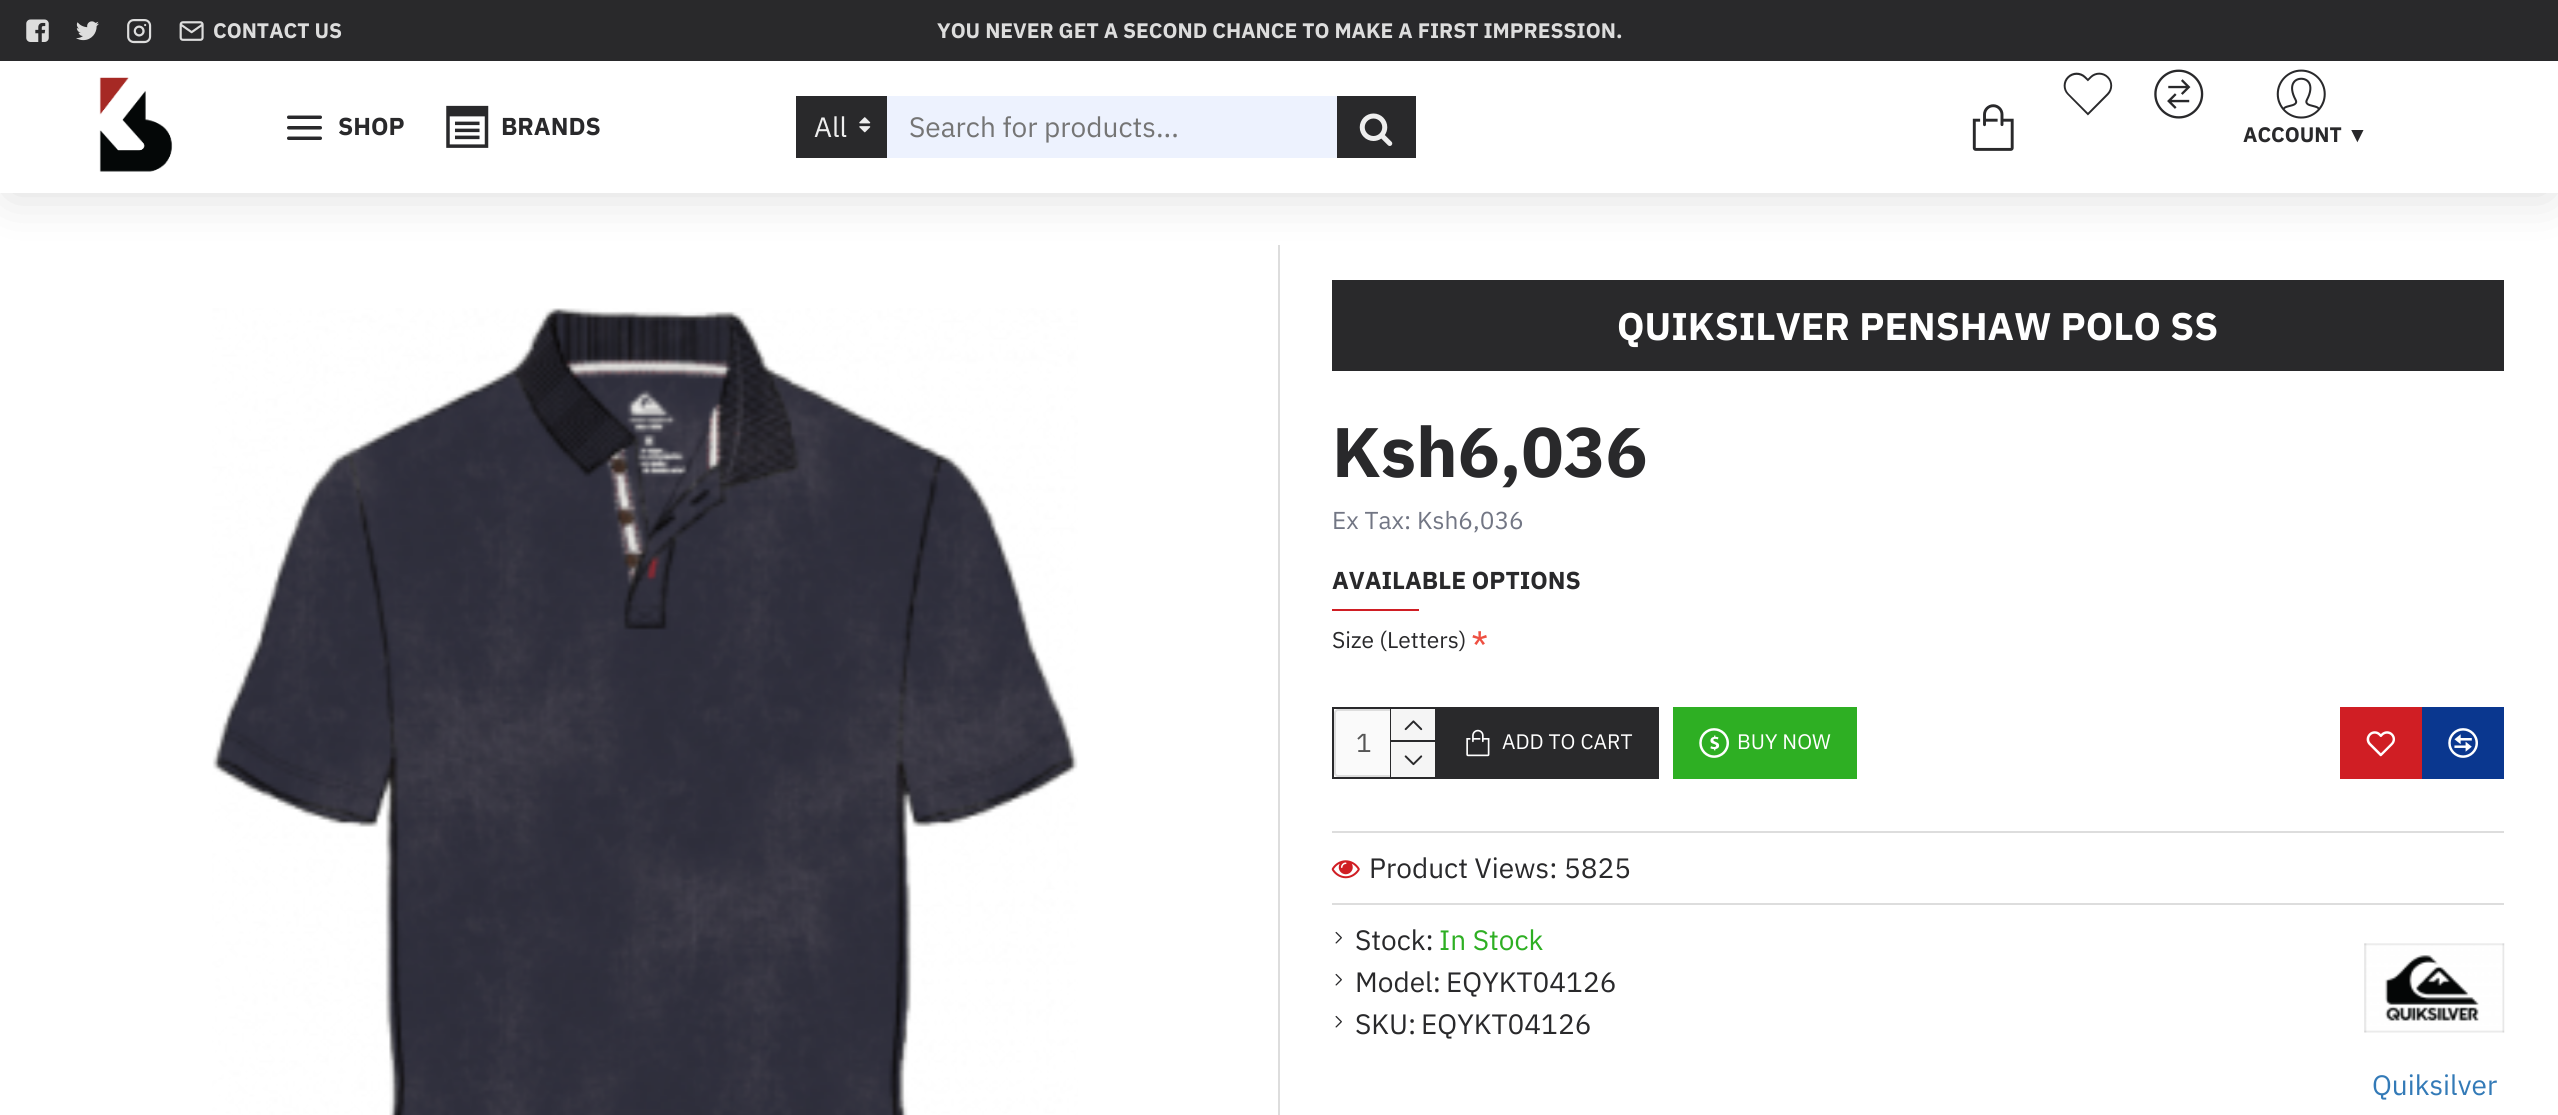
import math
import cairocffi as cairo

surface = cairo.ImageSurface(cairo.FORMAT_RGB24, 2558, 1115)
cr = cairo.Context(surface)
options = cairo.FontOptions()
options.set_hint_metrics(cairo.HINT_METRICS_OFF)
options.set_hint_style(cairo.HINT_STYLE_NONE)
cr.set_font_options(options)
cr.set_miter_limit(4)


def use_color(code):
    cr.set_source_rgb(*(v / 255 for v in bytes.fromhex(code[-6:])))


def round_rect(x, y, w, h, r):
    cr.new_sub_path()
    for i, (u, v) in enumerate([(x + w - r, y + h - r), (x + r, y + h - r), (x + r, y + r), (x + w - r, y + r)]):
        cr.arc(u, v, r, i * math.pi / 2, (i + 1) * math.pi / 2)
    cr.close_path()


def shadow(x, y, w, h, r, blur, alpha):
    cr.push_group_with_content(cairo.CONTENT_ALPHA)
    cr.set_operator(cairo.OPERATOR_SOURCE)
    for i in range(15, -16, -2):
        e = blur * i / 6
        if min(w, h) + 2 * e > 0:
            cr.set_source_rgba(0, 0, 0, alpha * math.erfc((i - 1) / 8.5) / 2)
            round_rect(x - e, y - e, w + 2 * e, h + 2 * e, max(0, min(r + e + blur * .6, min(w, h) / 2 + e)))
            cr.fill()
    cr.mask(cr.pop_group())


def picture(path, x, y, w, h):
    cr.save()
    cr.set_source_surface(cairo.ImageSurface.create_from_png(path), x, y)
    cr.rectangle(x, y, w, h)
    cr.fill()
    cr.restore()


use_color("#ffffff")
cr.paint()
use_color("#dddddd")
cr.rectangle(1278, 245, 2, 870)
cr.fill()
use_color("#000000")
shadow(9, 18, 2541, 175, 0, 26, 0.15)
use_color("#ffffff")
cr.rectangle(0, 61, 2558, 132)
cr.fill()
use_color("#29292b")
cr.rectangle(0, 0, 2558, 61)
cr.fill()
picture("img1.png", 26, 19, 23, 23)
picture("img2.png", 76, 21, 23, 20)
picture("img3.png", 127, 19, 25, 25)
picture("img4.png", 179, 21, 25, 20)
cr.select_font_face("IBM Plex Sans", cairo.FONT_SLANT_NORMAL, cairo.FONT_WEIGHT_BOLD)
cr.set_font_size(21)
use_color("#dddddd")
cr.move_to(213, 38)
cr.show_text("CONTACT US")
cr.move_to(937, 38)
cr.show_text("YOU NEVER GET A SECOND CHANCE TO MAKE A FIRST IMPRESSION.")
picture("img5.png", 99, 77, 74, 95)
picture("img6.png", 287, 115, 35, 25)
cr.set_font_size(24.5)
use_color("#29292b")
cr.move_to(338, 135)
cr.show_text("SHOP")
picture("img7.png", 446, 105, 43, 43)
cr.move_to(501, 135)
cr.show_text("BRANDS")
cr.rectangle(796, 96, 91, 62)
cr.fill()
cr.select_font_face("IBM Plex Sans")
cr.set_font_size(28)
use_color("#eeeeee")
cr.move_to(814, 137)
cr.show_text("All")
picture("img8.png", 859, 117, 12, 16)
use_color("#edf2fe")
cr.rectangle(887, 96, 450, 62)
cr.fill()
use_color("#757575")
cr.move_to(909, 137)
cr.show_text("Search for products...")
use_color("#29292b")
cr.rectangle(1337, 96, 79, 62)
cr.fill()
picture("img9.png", 1359, 113, 34, 33)
picture("img10.png", 1972, 104, 42, 47)
picture("img11.png", 2063, 72, 50, 44)
picture("img12.png", 2154, 69, 50, 50)
picture("img13.png", 2276, 69, 50, 50)
cr.select_font_face("IBM Plex Sans", cairo.FONT_SLANT_NORMAL, cairo.FONT_WEIGHT_BOLD)
cr.set_font_size(21)
cr.move_to(2243, 142)
cr.show_text("ACCOUNT")
cr.select_font_face("Liberation Serif", cairo.FONT_SLANT_NORMAL, cairo.FONT_WEIGHT_BOLD)
cr.move_to(2347, 142)
cr.show_text("▼")
picture("img14.png", 212, 308, 866, 807)
cr.rectangle(1332, 280, 1172, 91)
cr.fill()
cr.select_font_face("IBM Plex Sans", cairo.FONT_SLANT_NORMAL, cairo.FONT_WEIGHT_BOLD)
cr.set_font_size(38.5)
use_color("#ffffff")
cr.move_to(1617, 340)
cr.show_text("QUIKSILVER PENSHAW POLO SS")
cr.set_font_size(70)
use_color("#29292b")
cr.move_to(1332, 477)
cr.show_text("Ksh6,036")
cr.select_font_face("IBM Plex Sans")
cr.set_font_size(24.5)
use_color("#727684")
cr.move_to(1332, 529)
cr.show_text("Ex Tax: Ksh6,036")
cr.select_font_face("IBM Plex Sans", cairo.FONT_SLANT_NORMAL, cairo.FONT_WEIGHT_BOLD)
use_color("#29292b")
cr.move_to(1332, 589)
cr.show_text("AVAILABLE OPTIONS")
use_color("#d01e24")
cr.rectangle(1332, 609, 87, 2)
cr.fill()
cr.select_font_face("IBM Plex Sans")
cr.set_font_size(22.75)
use_color("#29292b")
cr.move_to(1332, 648)
cr.show_text("Size (Letters)")
cr.set_font_size(38.5)
use_color("#ee5042")
cr.move_to(1471, 660)
cr.show_text("*")
cr.rectangle(1333, 708, 103, 70)
use_color("#29292b")
cr.stroke()
use_color("#fafafa")
round_rect(1335, 710, 99, 66, 3)
cr.fill_preserve()
use_color("#dddddd")
cr.stroke()
cr.set_font_size(26)
use_color("#555555")
cr.move_to(1356, 752)
cr.show_text("1")
use_color("#29292b")
cr.rectangle(1390, 709, 1, 68)
cr.fill()
use_color("#f5f5f5")
cr.rectangle(1391, 709, 44, 31)
cr.fill()
use_color("#29292b")
cr.rectangle(1391, 740, 44, 2)
cr.fill()
picture("img15.png", 1404, 720, 19, 11)
use_color("#f5f5f5")
cr.rectangle(1391, 742, 44, 35)
cr.fill()
picture("img16.png", 1404, 755, 19, 11)
use_color("#29292b")
cr.rectangle(1437, 707, 222, 72)
cr.fill()
picture("img17.png", 1466, 729, 24, 28)
cr.set_font_size(21)
use_color("#ffffff")
cr.move_to(1502, 749)
cr.show_text("ADD TO CART")
use_color("#2eaf23")
cr.rectangle(1673, 707, 184, 72)
cr.fill()
picture("img18.png", 1699, 728, 30, 30)
use_color("#ffffff")
cr.move_to(1737, 749)
cr.show_text("BUY NOW")
use_color("#d01e24")
cr.rectangle(2340, 707, 82, 72)
cr.fill()
picture("img19.png", 2366, 731, 30, 26)
use_color("#0a378f")
cr.rectangle(2422, 707, 82, 72)
cr.fill()
picture("img20.png", 2448, 728, 30, 30)
use_color("#dddddd")
cr.rectangle(1332, 831, 1172, 2)
cr.fill()
cr.rectangle(1332, 903, 1172, 2)
cr.fill()
picture("img21.png", 1331, 860, 29, 19)
cr.set_font_size(28)
use_color("#29292b")
cr.move_to(1369, 878)
cr.show_text("Product Views: 5825")
picture("img22.png", 1335, 931, 7, 13)
cr.move_to(1355, 950)
cr.show_text("Stock:")
use_color("#2eaf23")
cr.move_to(1439, 950)
cr.show_text("In Stock")
picture("img22.png", 1335, 973, 7, 13)
use_color("#29292b")
cr.move_to(1355, 992)
cr.show_text("Model:")
cr.move_to(1446, 992)
cr.show_text("EQYKT04126")
picture("img22.png", 1335, 1015, 7, 13)
cr.move_to(1355, 1034)
cr.show_text("SKU:")
cr.move_to(1421, 1034)
cr.show_text("EQYKT04126")
picture("img23.png", 2364, 943, 141, 90)
use_color("#337ab7")
cr.move_to(2372, 1095)
cr.show_text("Quiksilver")
surface.write_to_png("result.png")
